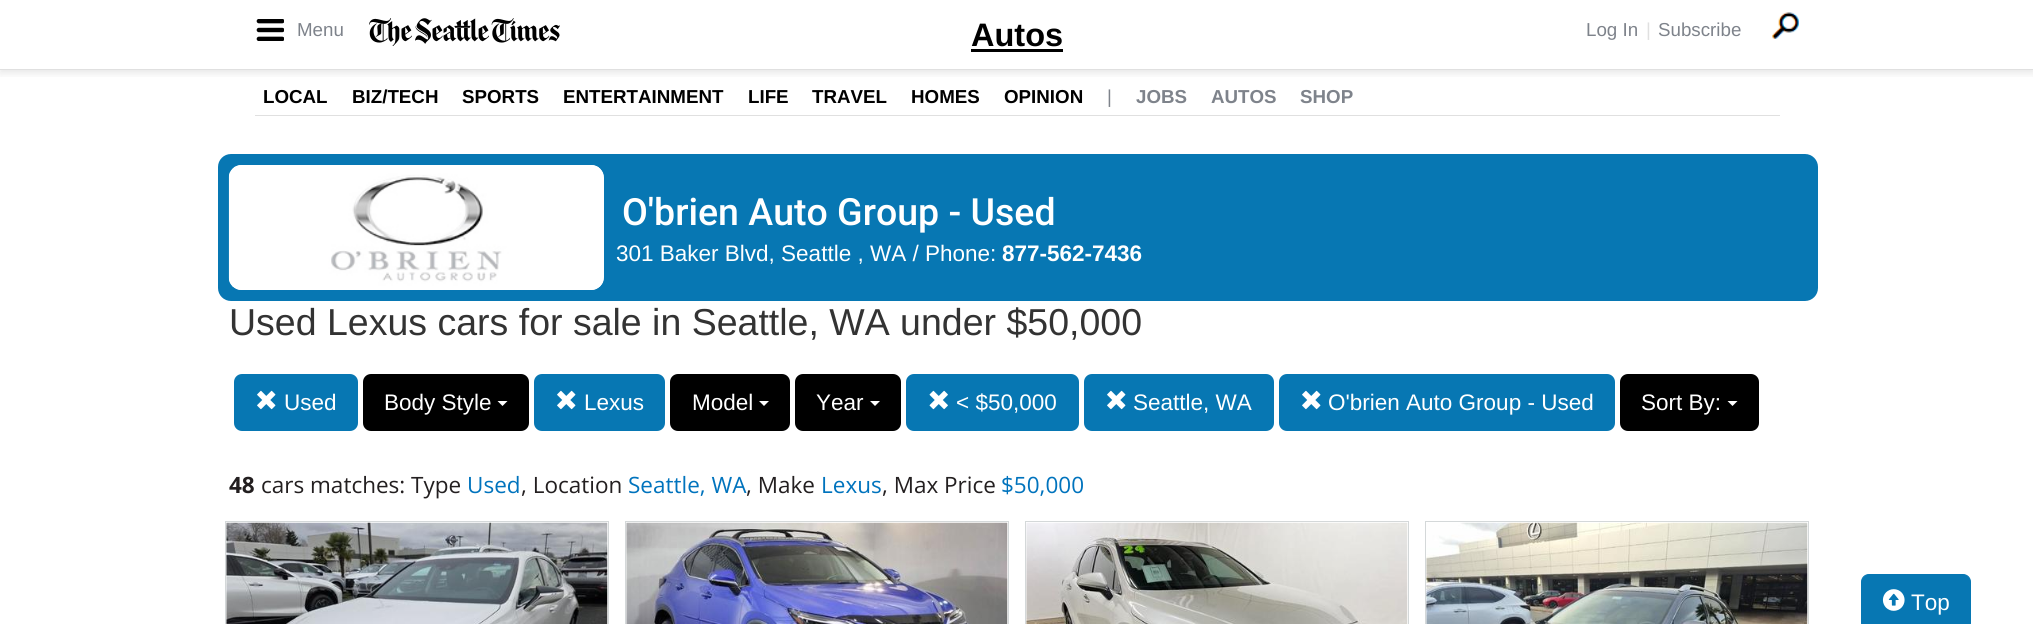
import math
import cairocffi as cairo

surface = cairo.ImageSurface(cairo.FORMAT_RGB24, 2033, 624)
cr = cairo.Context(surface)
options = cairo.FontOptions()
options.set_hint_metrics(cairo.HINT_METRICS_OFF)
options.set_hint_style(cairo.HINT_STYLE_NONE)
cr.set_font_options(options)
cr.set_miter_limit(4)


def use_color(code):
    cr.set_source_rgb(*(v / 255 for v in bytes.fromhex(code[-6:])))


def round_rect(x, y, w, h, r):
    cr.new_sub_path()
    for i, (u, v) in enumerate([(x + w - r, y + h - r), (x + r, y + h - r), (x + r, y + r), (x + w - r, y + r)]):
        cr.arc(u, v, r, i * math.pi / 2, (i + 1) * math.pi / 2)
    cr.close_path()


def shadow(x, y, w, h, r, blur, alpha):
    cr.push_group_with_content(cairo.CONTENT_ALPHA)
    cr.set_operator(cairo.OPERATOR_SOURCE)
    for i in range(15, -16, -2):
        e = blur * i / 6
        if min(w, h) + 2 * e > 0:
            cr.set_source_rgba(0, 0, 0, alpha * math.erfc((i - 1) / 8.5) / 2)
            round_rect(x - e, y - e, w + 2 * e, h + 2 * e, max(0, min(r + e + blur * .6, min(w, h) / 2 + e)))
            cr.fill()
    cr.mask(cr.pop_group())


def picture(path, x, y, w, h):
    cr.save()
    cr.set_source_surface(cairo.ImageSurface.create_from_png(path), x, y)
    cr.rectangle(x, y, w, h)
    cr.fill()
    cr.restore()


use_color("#ffffff")
cr.paint()
cr.save()
cr.rectangle(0, 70, 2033, 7)
cr.clip()
use_color("#000000")
shadow(0, 3, 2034, 70, 0, 4.5, 0.1)
cr.restore()
use_color("#e0e0e0")
cr.rectangle(0, 69, 2033, 1)
cr.fill()
picture("img1.png", 256, 19, 28, 22)
cr.select_font_face("Liberation Sans")
cr.set_font_size(18.75)
use_color("#7e838b")
cr.move_to(297, 36)
cr.show_text("Menu")
picture("img2.png", 369, 18, 191, 28)
cr.move_to(1586, 36)
cr.show_text("Log In")
use_color("#e0e0e0")
cr.move_to(1646, 36)
cr.show_text("|")
use_color("#7e838b")
cr.move_to(1658, 36)
cr.show_text("Subscribe")
picture("img3.png", 1772, 12, 27, 27)
cr.select_font_face("Liberation Sans", cairo.FONT_SLANT_NORMAL, cairo.FONT_WEIGHT_BOLD)
cr.set_font_size(32.5)
use_color("#000000")
cr.move_to(971, 46)
cr.show_text("Autos")
cr.rectangle(971, 49, 92, 3)
cr.fill()
use_color("#e0e0e0")
cr.rectangle(255, 115, 1525, 1)
cr.fill()
cr.set_font_size(18.75)
use_color("#000000")
cr.move_to(263, 103)
cr.show_text("LOCAL")
cr.move_to(352, 103)
cr.show_text("BIZ/TECH")
cr.move_to(462, 103)
cr.show_text("SPORTS")
cr.move_to(563, 103)
cr.show_text("ENTERTAINMENT")
cr.move_to(748, 103)
cr.show_text("LIFE")
cr.move_to(812, 103)
cr.show_text("TRAVEL")
cr.move_to(911, 103)
cr.show_text("HOMES")
cr.move_to(1004, 103)
cr.show_text("OPINION")
cr.select_font_face("Liberation Sans")
use_color("#7e838b")
cr.move_to(1107, 103)
cr.show_text("|")
cr.select_font_face("Liberation Sans", cairo.FONT_SLANT_NORMAL, cairo.FONT_WEIGHT_BOLD)
cr.move_to(1136, 103)
cr.show_text("JOBS")
cr.move_to(1211, 103)
cr.show_text("AUTOS")
cr.move_to(1300, 103)
cr.show_text("SHOP")
use_color("#0777b3")
round_rect(218, 154, 1600, 147, 13)
cr.fill()
use_color("#ffffff")
round_rect(229, 165, 375, 125, 13)
cr.fill()
picture("img4.png", 228, 165, 376, 125)
cr.select_font_face("Roboto Medium")
cr.set_font_size(37.5)
cr.move_to(622, 225)
cr.show_text("O'brien Auto Group - Used")
cr.select_font_face("Liberation Sans")
cr.set_font_size(22.5)
cr.move_to(616, 261)
cr.show_text("301 Baker Blvd, Seattle , WA / Phone:")
cr.select_font_face("Liberation Sans", cairo.FONT_SLANT_NORMAL, cairo.FONT_WEIGHT_BOLD)
cr.move_to(1002, 261)
cr.show_text("877-562-7436")
cr.select_font_face("Liberation Sans")
cr.set_font_size(37.5)
use_color("#333333")
cr.move_to(229, 335)
cr.show_text("Used Lexus cars for sale in Seattle, WA under $50,000")
use_color("#0777b3")
round_rect(234, 374, 124, 57, 8)
cr.fill()
picture("img5.png", 257, 390, 19, 20)
cr.set_font_size(22.5)
use_color("#ffffff")
cr.move_to(284, 410)
cr.show_text("Used")
use_color("#000000")
round_rect(363, 374, 166, 57, 8)
cr.fill()
use_color("#ffffff")
cr.move_to(384, 410)
cr.show_text("Body Style")
cr.new_path()
cr.move_to(497.5, 401)
cr.line_to(507.5, 401)
cr.line_to(502.5, 406)
cr.close_path()
cr.fill()
use_color("#0777b3")
round_rect(534, 374, 131, 57, 8)
cr.fill()
picture("img5.png", 557, 390, 19, 20)
use_color("#ffffff")
cr.move_to(584, 410)
cr.show_text("Lexus")
use_color("#000000")
round_rect(670, 374, 120, 57, 8)
cr.fill()
use_color("#ffffff")
cr.move_to(692, 410)
cr.show_text("Model")
cr.new_path()
cr.move_to(759, 401)
cr.line_to(769, 401)
cr.line_to(764, 406)
cr.close_path()
cr.fill()
use_color("#000000")
round_rect(795, 374, 106, 57, 8)
cr.fill()
use_color("#ffffff")
cr.move_to(816, 410)
cr.show_text("Year")
cr.new_path()
cr.move_to(870, 401)
cr.line_to(880, 401)
cr.line_to(875, 406)
cr.close_path()
cr.fill()
use_color("#0777b3")
round_rect(906, 374, 173, 57, 8)
cr.fill()
picture("img6.png", 929, 390, 19, 20)
use_color("#ffffff")
cr.move_to(956, 410)
cr.show_text("< $50,000")
use_color("#0777b3")
round_rect(1084, 374, 190, 57, 8)
cr.fill()
picture("img5.png", 1107, 390, 19, 20)
use_color("#ffffff")
cr.move_to(1133, 410)
cr.show_text("Seattle, WA")
use_color("#0777b3")
round_rect(1279, 374, 336, 57, 8)
cr.fill()
picture("img5.png", 1302, 390, 19, 20)
use_color("#ffffff")
cr.move_to(1328, 410)
cr.show_text("O'brien Auto Group - Used")
use_color("#000000")
round_rect(1620, 374, 139, 57, 8)
cr.fill()
use_color("#ffffff")
cr.move_to(1641, 410)
cr.show_text("Sort By:")
cr.new_path()
cr.move_to(1727.5, 401)
cr.line_to(1737.5, 401)
cr.line_to(1732.5, 406)
cr.close_path()
cr.fill()
cr.select_font_face("Open Sans", cairo.FONT_SLANT_NORMAL, cairo.FONT_WEIGHT_BOLD)
use_color("#231f20")
cr.move_to(229, 493)
cr.show_text("48")
cr.select_font_face("Open Sans")
cr.move_to(261, 493)
cr.show_text("cars matches: Type")
use_color("#0073bd")
cr.move_to(467, 493)
cr.show_text("Used")
use_color("#231f20")
cr.move_to(521, 493)
cr.show_text(", Location")
use_color("#0073bd")
cr.move_to(628, 493)
cr.show_text("Seattle, WA")
use_color("#231f20")
cr.move_to(746, 493)
cr.show_text(", Make")
use_color("#0073bd")
cr.move_to(821, 493)
cr.show_text("Lexus")
use_color("#231f20")
cr.move_to(882, 493)
cr.show_text(", Max Price")
use_color("#0073bd")
cr.move_to(1001, 493)
cr.show_text("$50,000")
cr.rectangle(225.5, 521.5, 383, 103)
use_color("#d4d8d9")
cr.set_line_width(1)
cr.stroke()
picture("img7.png", 226, 522, 382, 102)
cr.rectangle(625.5, 521.5, 383, 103)
cr.stroke()
picture("img8.png", 626, 522, 382, 102)
cr.rectangle(1025.5, 521.5, 383, 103)
cr.stroke()
picture("img9.png", 1026, 522, 382, 102)
cr.rectangle(1425.5, 521.5, 383, 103)
cr.stroke()
picture("img10.png", 1426, 522, 382, 102)
use_color("#0777b3")
round_rect(1861.5, 574.5, 109, 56, 7.5)
cr.fill_preserve()
cr.stroke()
picture("img11.png", 1882, 589, 23, 22)
cr.select_font_face("Liberation Sans")
use_color("#ffffff")
cr.move_to(1911, 610)
cr.show_text("Top")
surface.write_to_png("result.png")
